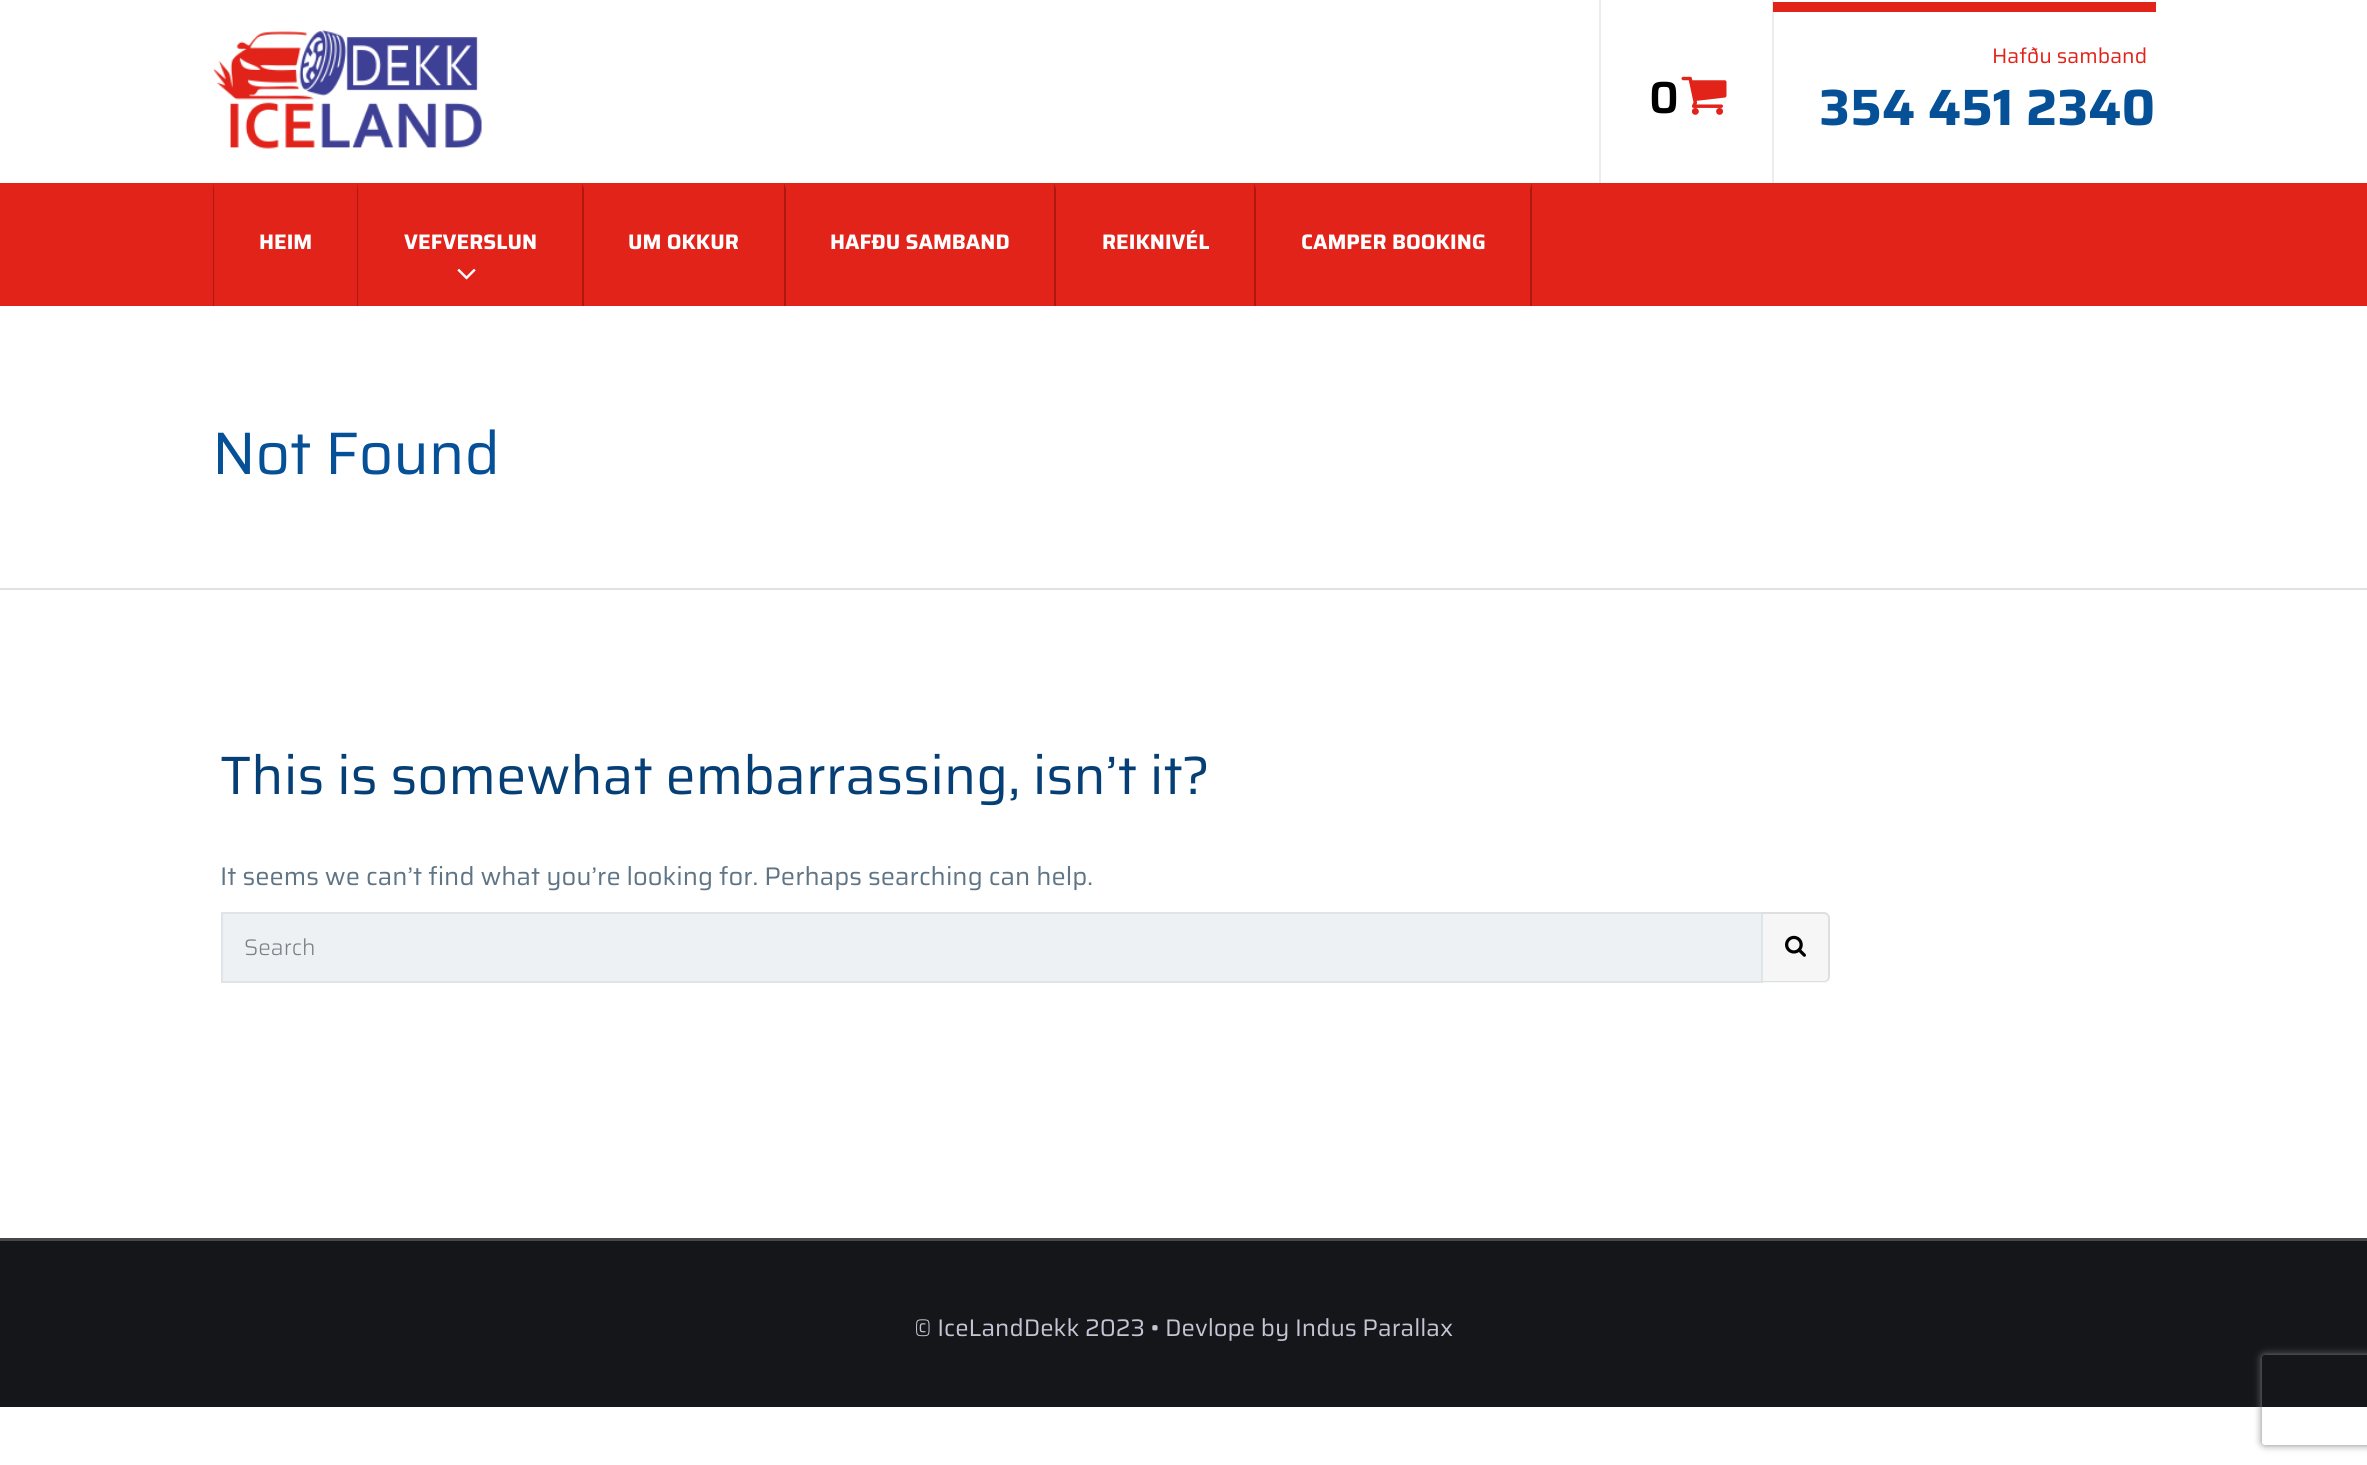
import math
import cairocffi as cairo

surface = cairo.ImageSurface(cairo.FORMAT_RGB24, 2367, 1465)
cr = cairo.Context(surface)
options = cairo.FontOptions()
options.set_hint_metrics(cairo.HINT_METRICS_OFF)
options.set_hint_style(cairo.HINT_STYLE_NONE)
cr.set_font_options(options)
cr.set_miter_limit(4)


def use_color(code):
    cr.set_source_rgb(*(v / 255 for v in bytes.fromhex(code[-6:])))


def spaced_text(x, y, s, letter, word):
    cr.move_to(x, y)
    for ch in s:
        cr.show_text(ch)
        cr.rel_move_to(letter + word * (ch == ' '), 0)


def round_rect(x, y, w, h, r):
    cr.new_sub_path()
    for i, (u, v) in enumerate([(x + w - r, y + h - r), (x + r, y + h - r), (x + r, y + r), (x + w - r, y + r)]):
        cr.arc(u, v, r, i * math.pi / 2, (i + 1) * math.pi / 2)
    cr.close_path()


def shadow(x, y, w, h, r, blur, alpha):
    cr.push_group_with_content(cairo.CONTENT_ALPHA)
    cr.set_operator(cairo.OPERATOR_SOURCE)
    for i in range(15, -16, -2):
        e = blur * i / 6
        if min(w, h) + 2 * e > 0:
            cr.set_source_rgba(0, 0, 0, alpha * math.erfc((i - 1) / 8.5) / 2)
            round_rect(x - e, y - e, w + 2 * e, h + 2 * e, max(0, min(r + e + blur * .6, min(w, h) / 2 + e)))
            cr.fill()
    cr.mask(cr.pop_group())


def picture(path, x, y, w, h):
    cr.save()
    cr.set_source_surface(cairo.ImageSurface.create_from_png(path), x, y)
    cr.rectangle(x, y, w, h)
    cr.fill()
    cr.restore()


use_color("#ffffff")
cr.paint()
picture("img1.png", 213, 30, 269, 119)
use_color("#ececec")
cr.rectangle(1772, 0, 2, 183)
cr.fill()
cr.rectangle(1599, 0, 2, 183)
cr.fill()
cr.select_font_face("Saira SemiBold")
cr.set_font_size(45)
use_color("#000000")
cr.move_to(1649, 113)
cr.show_text("0")
picture("img2.png", 1681, 76, 46, 39)
use_color("#e1231a")
cr.rectangle(1773, 2, 383, 10)
cr.fill()
cr.select_font_face("Saira")
cr.set_font_size(21)
cr.move_to(1992, 63)
cr.show_text("Hafðu samband")
cr.select_font_face("Saira", cairo.FONT_SLANT_NORMAL, cairo.FONT_WEIGHT_BOLD)
cr.set_font_size(51)
use_color("#055097")
cr.move_to(1819, 125)
cr.show_text("354 451 2340")
use_color("#e1231a")
cr.rectangle(0, 183, 2367, 123)
cr.fill()
use_color("#ae1811")
cr.new_path()
cr.move_to(213, 306)
cr.line_to(213, 183)
cr.line_to(214, 189)
cr.line_to(214, 306)
cr.close_path()
cr.fill()
cr.set_font_size(21)
use_color("#ffffff")
cr.move_to(259, 249)
cr.show_text("HEIM")
use_color("#ae1811")
cr.new_path()
cr.move_to(357, 306)
cr.line_to(357, 183)
cr.line_to(358, 189)
cr.line_to(358, 306)
cr.close_path()
cr.fill()
use_color("#ffffff")
cr.move_to(404, 249)
cr.show_text("VEFVERSLUN")
picture("img3.png", 457, 268, 19, 12)
use_color("#ae1811")
cr.new_path()
cr.move_to(582, 306)
cr.line_to(582, 183)
cr.line_to(584, 189)
cr.line_to(584, 306)
cr.close_path()
cr.fill()
use_color("#ffffff")
cr.move_to(628, 249)
cr.show_text("UM OKKUR")
use_color("#ae1811")
cr.new_path()
cr.move_to(784, 306)
cr.line_to(784, 183)
cr.line_to(786, 189)
cr.line_to(786, 306)
cr.close_path()
cr.fill()
use_color("#ffffff")
cr.move_to(830, 249)
cr.show_text("HAFÐU SAMBAND")
use_color("#ae1811")
cr.new_path()
cr.move_to(1054, 306)
cr.line_to(1054, 183)
cr.line_to(1056, 189)
cr.line_to(1056, 306)
cr.close_path()
cr.fill()
use_color("#ffffff")
cr.move_to(1102, 249)
cr.show_text("REIKNIVÉL")
use_color("#ae1811")
cr.new_path()
cr.move_to(1532, 183)
cr.line_to(1532, 306)
cr.line_to(1530, 306)
cr.line_to(1530, 189)
cr.close_path()
cr.fill()
cr.new_path()
cr.move_to(1254, 306)
cr.line_to(1254, 183)
cr.line_to(1256, 189)
cr.line_to(1256, 306)
cr.close_path()
cr.fill()
use_color("#ffffff")
cr.move_to(1301, 249)
cr.show_text("CAMPER BOOKING")
use_color("#e1e1e1")
cr.rectangle(0, 588, 2367, 2)
cr.fill()
cr.select_font_face("Saira")
cr.set_font_size(60)
use_color("#055097")
spaced_text(212, 474, "Not Found", -0.25, 0)
cr.set_font_size(54)
use_color("#053f75")
cr.move_to(220, 794)
cr.show_text("This is somewhat embarrassing, isn’t it?")
cr.set_font_size(25.5)
use_color("#5f7586")
cr.move_to(220, 885)
cr.show_text("It seems we can’t find what you’re looking for. Perhaps searching can help.")
use_color("#eef1f3")
cr.rectangle(222, 913, 1540, 69)
cr.fill_preserve()
use_color("#dee4e8")
cr.stroke()
cr.select_font_face("Saira Light")
cr.set_font_size(22.5)
use_color("#7b8085")
cr.move_to(244, 955)
cr.show_text("Search")
use_color("#f7f6f7")
cr.new_path()
cr.move_to(1763, 912)
cr.line_to(1824, 912)
cr.curve_to(1827.5, 912, 1830, 914.5, 1830, 918)
cr.line_to(1830, 977)
cr.curve_to(1830, 980.5, 1827.5, 983, 1824, 983)
cr.line_to(1763, 983)
cr.close_path()
cr.fill()
use_color("#dce0e1")
cr.set_fill_rule(cairo.FILL_RULE_EVEN_ODD)
cr.new_path()
cr.move_to(1762, 912)
cr.line_to(1824, 912)
cr.curve_to(1827, 912, 1830, 915, 1830, 918)
cr.line_to(1830, 976)
cr.curve_to(1830, 980, 1827, 982, 1824, 982)
cr.line_to(1762, 982)
cr.close_path()
cr.move_to(1762, 914)
cr.line_to(1824, 914)
cr.curve_to(1826, 914, 1828, 916, 1828, 918)
cr.line_to(1828, 976)
cr.curve_to(1828, 979, 1826, 981, 1824, 981)
cr.line_to(1762, 981)
cr.close_path()
cr.fill()
picture("img4.png", 1785, 935, 21, 22)
use_color("#15161a")
cr.rectangle(0, 1241, 2367, 166)
cr.fill()
use_color("#47484b")
cr.rectangle(0, 1238, 2367, 3)
cr.fill()
cr.select_font_face("Saira")
cr.set_font_size(24)
use_color("#c3c5d4")
cr.move_to(914, 1336)
cr.show_text("© IceLandDekk 2023 • Devlope by Indus Parallax")
cr.save()
cr.new_path()
cr.move_to(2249, 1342)
cr.line_to(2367, 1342)
cr.line_to(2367, 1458)
cr.line_to(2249, 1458)
cr.close_path()
cr.move_to(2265, 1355)
cr.line_to(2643, 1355)
cr.curve_to(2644.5, 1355, 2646, 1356.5, 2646, 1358)
cr.line_to(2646, 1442)
cr.curve_to(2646, 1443.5, 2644.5, 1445, 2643, 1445)
cr.line_to(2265, 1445)
cr.curve_to(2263.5, 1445, 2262, 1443.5, 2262, 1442)
cr.line_to(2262, 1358)
cr.curve_to(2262, 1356.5, 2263.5, 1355, 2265, 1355)
cr.close_path()
cr.clip()
use_color("#808080")
shadow(2262, 1355, 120, 90, 3, 4, 1)
cr.restore()
surface.write_to_png("result.png")
